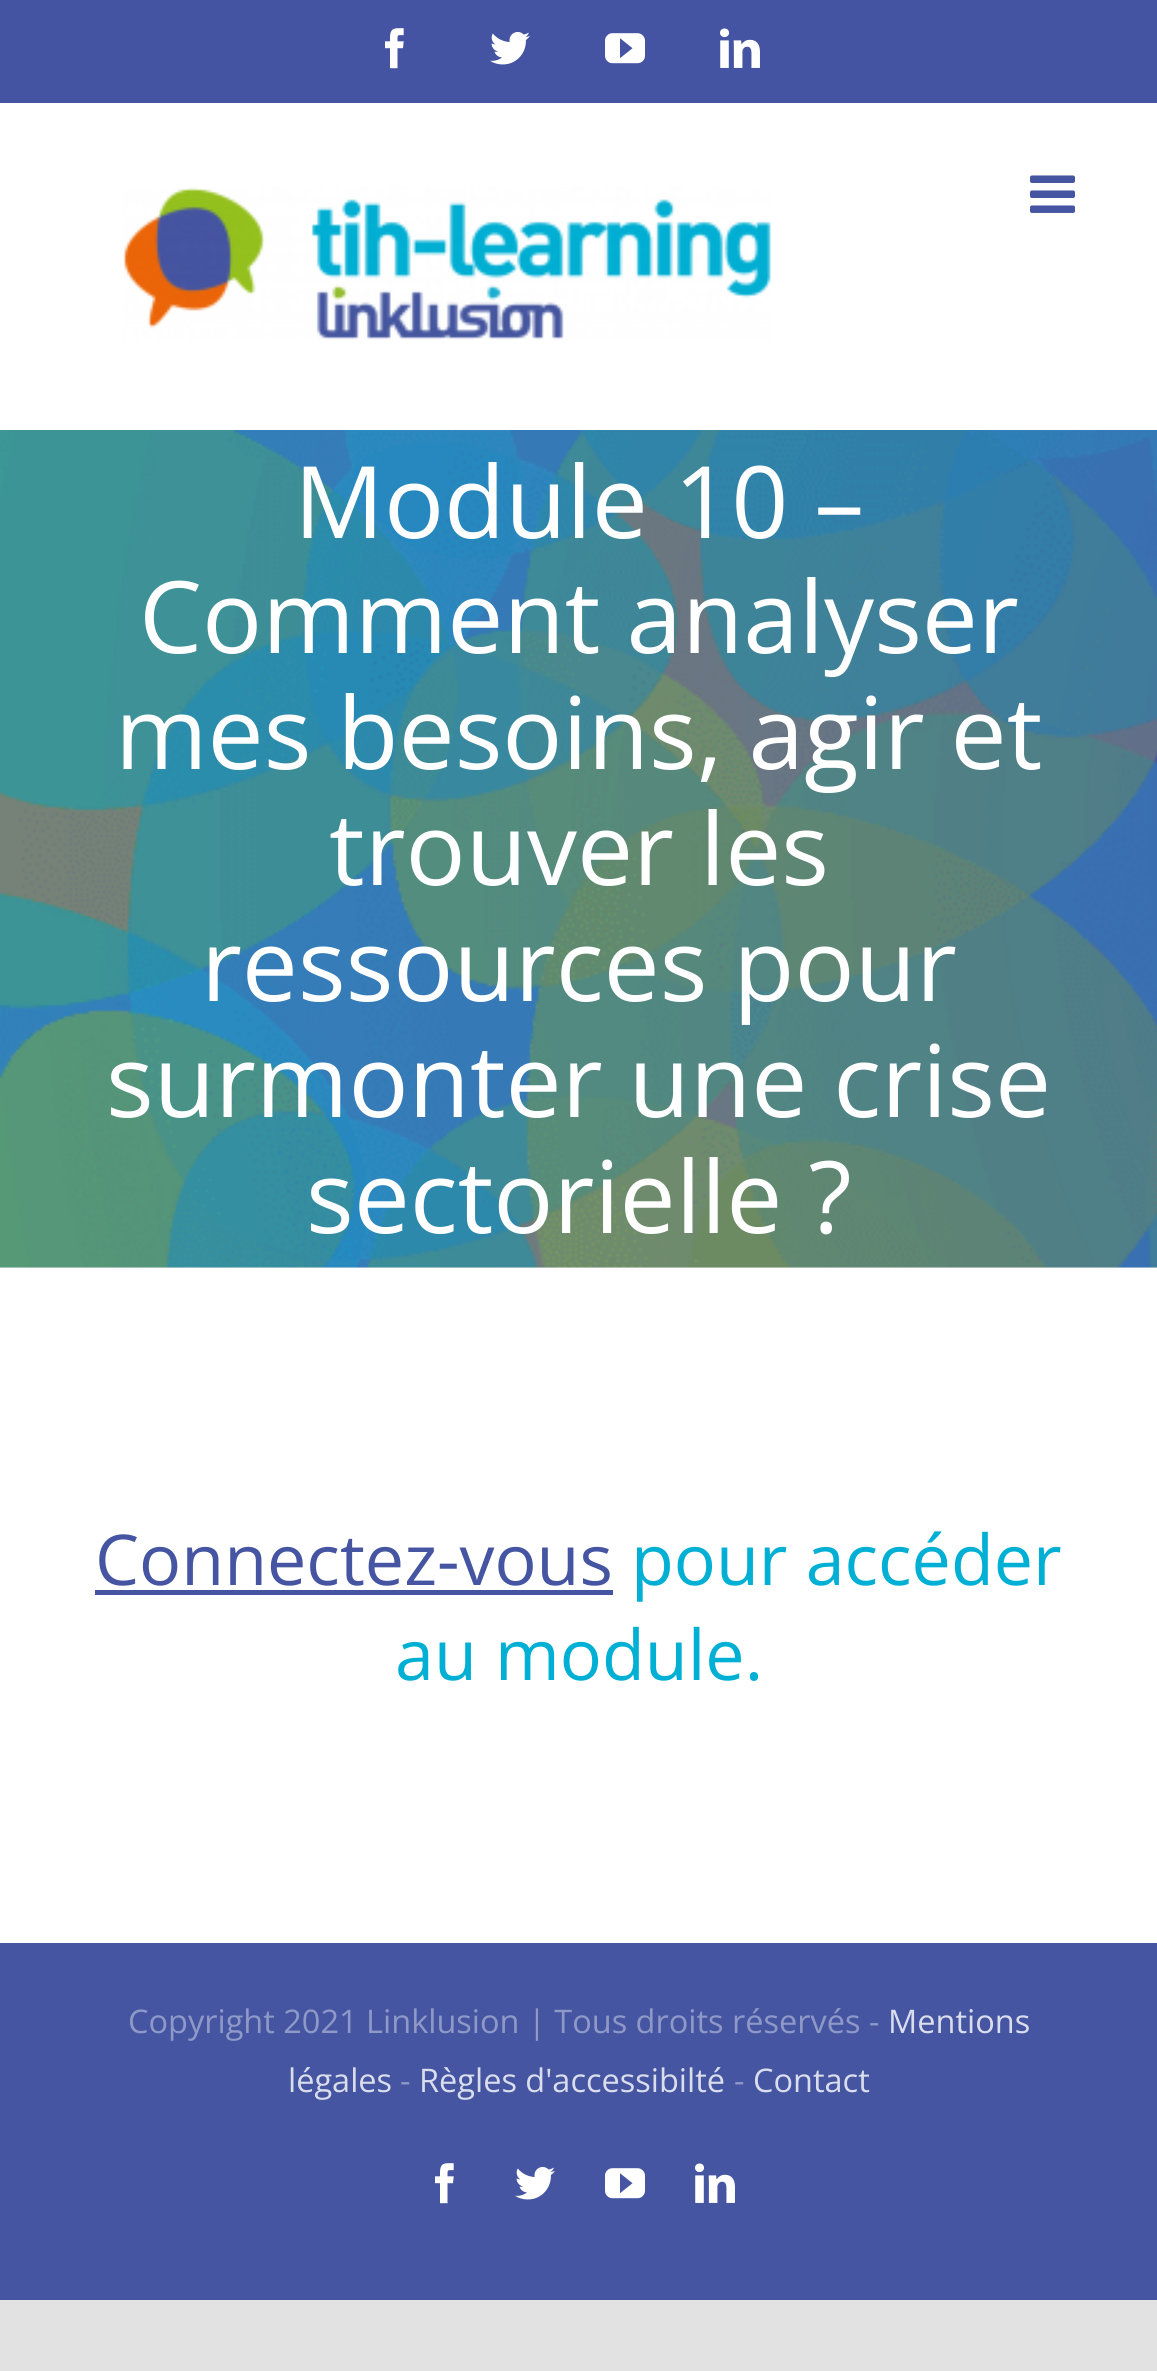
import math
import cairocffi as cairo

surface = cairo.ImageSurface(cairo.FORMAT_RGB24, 1157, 2371)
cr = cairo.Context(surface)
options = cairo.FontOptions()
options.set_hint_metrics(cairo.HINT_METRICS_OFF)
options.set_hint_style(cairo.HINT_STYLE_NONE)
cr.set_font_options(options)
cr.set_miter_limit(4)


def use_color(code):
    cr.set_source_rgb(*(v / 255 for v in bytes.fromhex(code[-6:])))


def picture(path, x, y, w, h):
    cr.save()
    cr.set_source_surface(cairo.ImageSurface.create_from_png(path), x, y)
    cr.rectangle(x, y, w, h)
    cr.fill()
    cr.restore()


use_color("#e2e2e2")
cr.paint()
use_color("#ffffff")
cr.rectangle(0, 1268, 1157, 675)
cr.fill()
use_color("#4554a2")
cr.rectangle(0, 0, 1157, 103)
cr.fill()
picture("img1.png", 385, 28, 19, 41)
picture("img2.png", 490, 32, 40, 33)
picture("img3.png", 605, 33, 40, 31)
picture("img4.png", 720, 28, 40, 40)
use_color("#ffffff")
cr.rectangle(0, 103, 1157, 327)
cr.fill()
picture("img5.png", 123, 187, 648, 153)
picture("img6.png", 1030, 175, 45, 38)
use_color("#f2f3f5")
cr.rectangle(0, 1267, 1157, 1)
cr.fill()
picture("img7.png", 0, 430, 1157, 838)
cr.select_font_face("Open Sans")
cr.set_font_size(100)
use_color("#ffffff")
cr.move_to(294, 538)
cr.show_text("Module 10 –")
cr.move_to(139, 653)
cr.show_text("Comment analyser")
cr.move_to(115, 769)
cr.show_text("mes besoins, agir et")
cr.move_to(329, 885)
cr.show_text("trouver les")
cr.move_to(201, 1001)
cr.show_text("ressources pour")
cr.move_to(106, 1117)
cr.show_text("surmonter une crise")
cr.move_to(306, 1233)
cr.show_text("sectorielle ?")
cr.set_font_size(70)
use_color("#4555a2")
cr.move_to(95, 1585)
cr.show_text("Connectez-vous")
cr.rectangle(95, 1590, 518, 5)
cr.fill()
use_color("#00afd4")
cr.move_to(631, 1585)
cr.show_text("pour accéder")
cr.move_to(395, 1680)
cr.show_text("au module.")
use_color("#4555a2")
cr.rectangle(0, 1943, 1157, 357)
cr.fill()
cr.set_font_size(32.5)
use_color("#8f99c7")
cr.move_to(128, 2033)
cr.show_text("Copyright 2021 Linklusion | Tous droits réservés -")
use_color("#daddec")
cr.move_to(888, 2033)
cr.show_text("Mentions")
cr.move_to(288, 2092)
cr.show_text("légales")
use_color("#8f99c7")
cr.move_to(400, 2092)
cr.show_text("-")
use_color("#daddec")
cr.move_to(419, 2092)
cr.show_text("Règles d'accessibilté")
use_color("#8f99c7")
cr.move_to(734, 2092)
cr.show_text("-")
use_color("#daddec")
cr.move_to(753, 2092)
cr.show_text("Contact")
picture("img8.png", 435, 2163, 19, 41)
picture("img9.png", 515, 2167, 40, 33)
picture("img10.png", 605, 2168, 40, 31)
picture("img11.png", 695, 2163, 40, 40)
surface.write_to_png("result.png")
